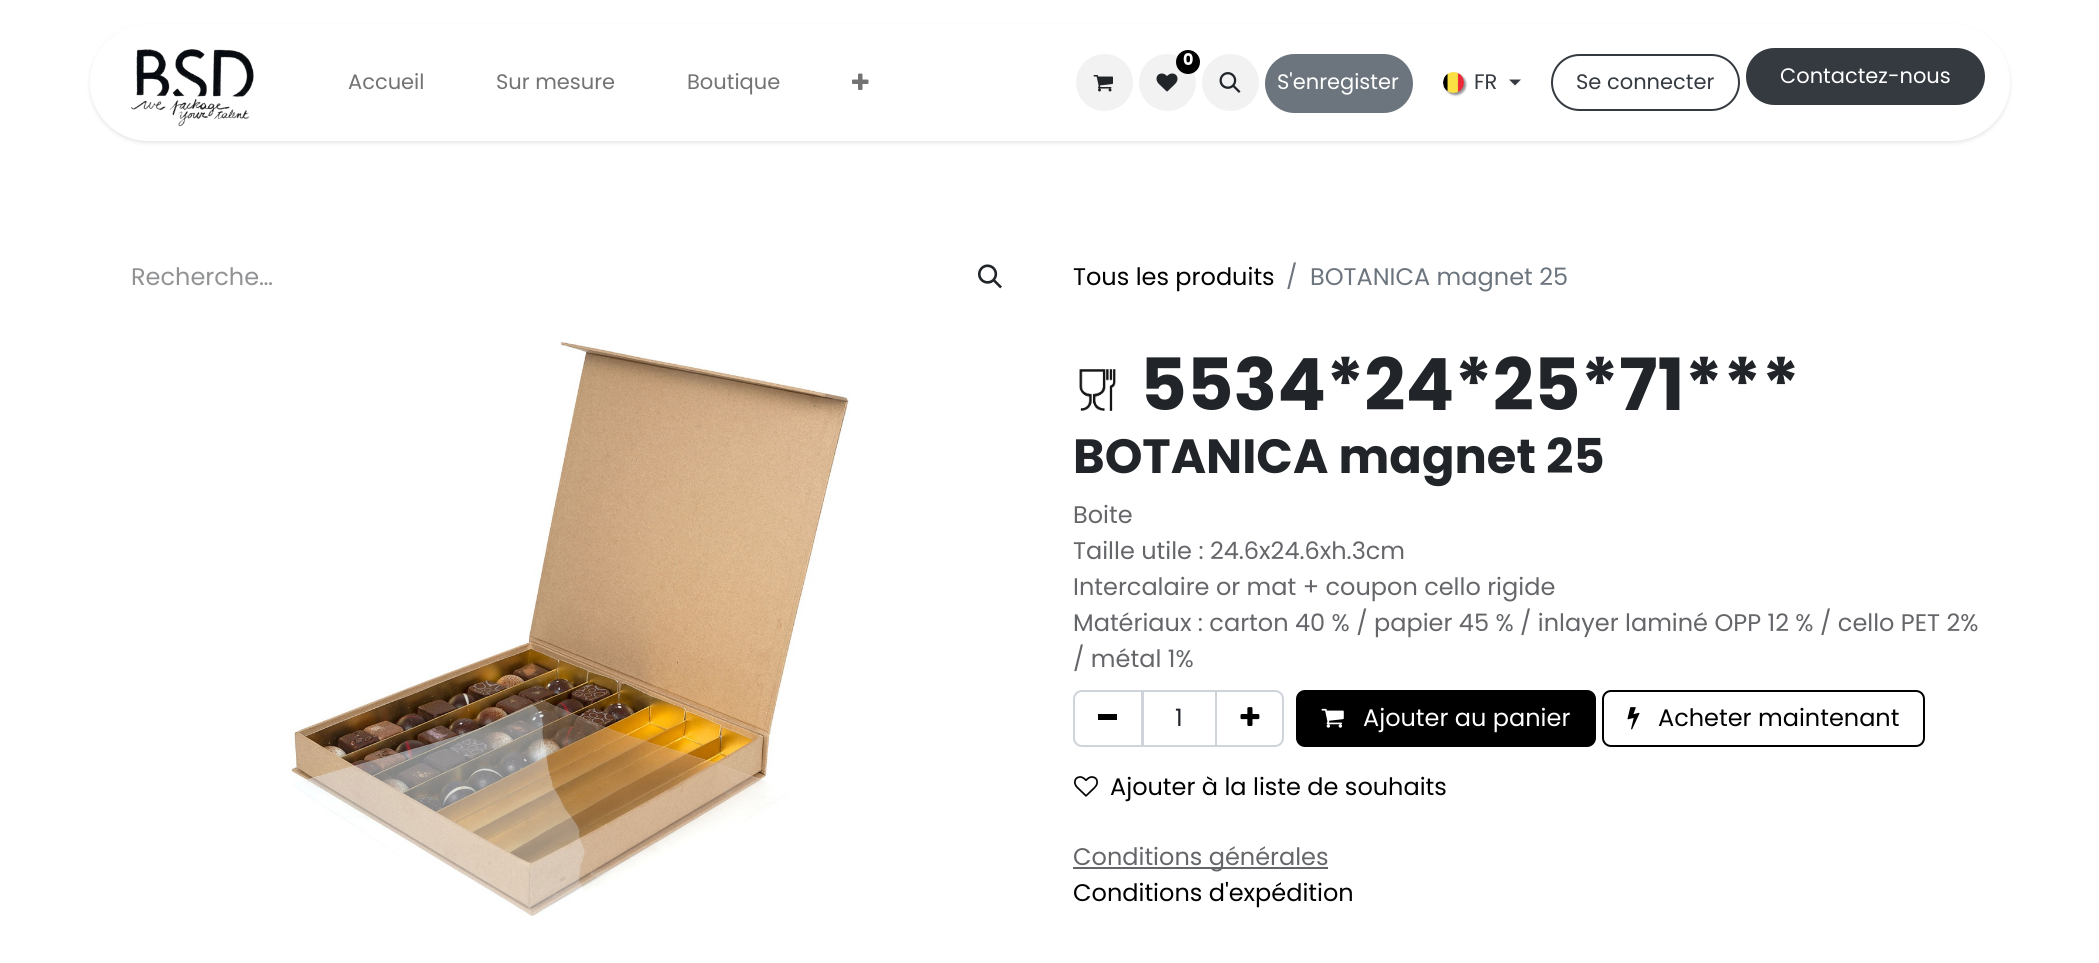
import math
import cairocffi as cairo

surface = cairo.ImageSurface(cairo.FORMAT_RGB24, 2099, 963)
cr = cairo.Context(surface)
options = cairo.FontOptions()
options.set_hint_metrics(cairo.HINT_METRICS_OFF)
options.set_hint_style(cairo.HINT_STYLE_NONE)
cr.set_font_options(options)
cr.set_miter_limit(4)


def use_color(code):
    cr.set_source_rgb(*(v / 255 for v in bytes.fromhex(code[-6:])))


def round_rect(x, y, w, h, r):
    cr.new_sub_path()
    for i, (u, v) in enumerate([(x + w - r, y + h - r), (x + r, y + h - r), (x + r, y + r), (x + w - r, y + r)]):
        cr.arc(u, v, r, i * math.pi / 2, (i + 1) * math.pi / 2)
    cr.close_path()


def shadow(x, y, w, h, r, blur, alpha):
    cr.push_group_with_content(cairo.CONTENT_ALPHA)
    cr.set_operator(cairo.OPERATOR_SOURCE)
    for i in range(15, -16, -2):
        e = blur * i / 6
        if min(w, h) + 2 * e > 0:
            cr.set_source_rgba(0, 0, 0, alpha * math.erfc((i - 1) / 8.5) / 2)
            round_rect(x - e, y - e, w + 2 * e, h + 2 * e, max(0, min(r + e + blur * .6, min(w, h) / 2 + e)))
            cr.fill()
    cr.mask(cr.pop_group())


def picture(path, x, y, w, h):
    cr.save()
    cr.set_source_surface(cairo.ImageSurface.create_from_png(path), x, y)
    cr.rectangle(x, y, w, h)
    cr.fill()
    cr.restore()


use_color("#ffffff")
cr.paint()
use_color("#000000")
shadow(90, 26, 1920, 117, 58.5, 2, 0.1)
use_color("#ffffff")
round_rect(90, 24, 1920, 117, 58.5)
cr.fill()
picture("img1.png", 131, 49, 123, 78)
cr.select_font_face("Poppins")
cr.set_font_size(21)
use_color("#737373")
cr.move_to(348, 89)
cr.show_text("Accueil")
cr.move_to(496, 89)
cr.show_text("Sur mesure")
cr.move_to(687, 89)
cr.show_text("Boutique")
picture("img2.png", 852, 73, 17, 17)
use_color("#f2f2f2")
cr.arc(1104.5, 82.5, 28.5, 0, 2 * math.pi)
cr.fill()
picture("img3.png", 1093, 75, 20, 17)
cr.arc(1167.5, 82.5, 28.5, 0, 2 * math.pi)
cr.fill()
picture("img4.png", 1156, 73, 22, 19)
use_color("#000000")
cr.arc(1188, 62, 12, 0, 2 * math.pi)
cr.fill()
cr.select_font_face("Poppins", cairo.FONT_SLANT_NORMAL, cairo.FONT_WEIGHT_BOLD)
cr.set_font_size(16)
use_color("#ffffff")
cr.move_to(1183, 65)
cr.show_text("0")
use_color("#f2f2f2")
cr.new_path()
cr.arc(1230.5, 82.5, 28.5, 0, 2 * math.pi)
cr.fill()
picture("img5.png", 1219, 72, 22, 21)
use_color("#6c757d")
round_rect(1265, 54, 148, 59, 29.5)
cr.fill()
cr.select_font_face("Poppins")
cr.set_font_size(21)
use_color("#ffffff")
cr.move_to(1277, 89)
cr.show_text("S'enregister")
use_color("#000000")
shadow(1445, 74, 21, 21, 10.5, 1, 0.43)
picture("img6.png", 1443, 72, 21, 21)
use_color("#343a40")
cr.move_to(1474, 89)
cr.show_text("FR")
cr.new_path()
cr.move_to(1509, 79.5)
cr.line_to(1521, 79.5)
cr.line_to(1515, 85.5)
cr.close_path()
cr.fill()
round_rect(1552, 55, 187, 55, 27.5)
cr.stroke()
cr.move_to(1576, 89)
cr.show_text("Se connecter")
round_rect(1746, 48, 239, 57, 28.5)
cr.fill()
use_color("#ffffff")
cr.move_to(1780, 83)
cr.show_text("Contactez-nous")
cr.set_font_size(24)
use_color("#909294")
cr.move_to(131, 285)
cr.show_text("Recherche…")
picture("img7.png", 978, 264, 24, 25)
use_color("#000000")
cr.move_to(1073, 285)
cr.show_text("Tous les produits")
use_color("#6c757d")
cr.move_to(1286, 285)
cr.show_text("/")
cr.move_to(1310, 285)
cr.show_text("BOTANICA magnet 25")
picture("img8.png", 289, 342, 562, 575)
picture("img9.png", 1079, 369, 37, 42)
cr.select_font_face("Poppins", cairo.FONT_SLANT_NORMAL, cairo.FONT_WEIGHT_BOLD)
cr.set_font_size(72)
use_color("#212529")
cr.move_to(1140, 410)
cr.show_text("5534*24*25*71***")
cr.set_font_size(48)
cr.move_to(1073, 473)
cr.show_text("BOTANICA magnet 25")
cr.select_font_face("Poppins")
cr.set_font_size(24)
use_color("#646669")
cr.move_to(1073, 523)
cr.show_text("Boite")
cr.move_to(1073, 559)
cr.show_text("Taille utile : 24.6x24.6xh.3cm")
cr.move_to(1073, 595)
cr.show_text("Intercalaire or mat + coupon cello rigide")
cr.move_to(1073, 631)
cr.show_text("Matériaux : carton 40 % / papier 45 % / inlayer laminé OPP 12 % / cello PET 2%")
cr.move_to(1073, 667)
cr.show_text("/ métal 1%")
cr.rectangle(1143, 691, 73, 55)
use_color("#ced4da")
cr.stroke()
cr.new_path()
cr.move_to(1082, 691)
cr.line_to(1142, 691)
cr.line_to(1142, 746)
cr.line_to(1082, 746)
cr.curve_to(1077.5, 746, 1074, 742.5, 1074, 738)
cr.line_to(1074, 699)
cr.curve_to(1074, 694.5, 1077.5, 691, 1082, 691)
cr.close_path()
cr.stroke()
use_color("#000000")
cr.rectangle(1098, 714, 19, 6)
cr.fill()
use_color("#212529")
cr.move_to(1175, 726)
cr.show_text("1")
cr.new_path()
cr.move_to(1216, 691)
cr.line_to(1275, 691)
cr.curve_to(1279.5, 691, 1283, 694.5, 1283, 699)
cr.line_to(1283, 738)
cr.curve_to(1283, 742.5, 1279.5, 746, 1275, 746)
cr.line_to(1216, 746)
cr.close_path()
use_color("#ced4da")
cr.stroke()
picture("img10.png", 1240, 707, 20, 19)
use_color("#000000")
round_rect(1297, 691, 298, 55, 8)
cr.fill_preserve()
cr.stroke()
picture("img11.png", 1321, 708, 23, 20)
use_color("#ffffff")
cr.move_to(1363, 726)
cr.show_text("Ajouter au panier")
round_rect(1603, 691, 321, 55, 8)
use_color("#000000")
cr.stroke()
picture("img12.png", 1627, 707, 13, 23)
cr.move_to(1658, 726)
cr.show_text("Acheter maintenant")
picture("img13.png", 1074, 776, 24, 21)
cr.move_to(1110, 795)
cr.show_text("Ajouter à la liste de souhaits")
use_color("#646669")
cr.rectangle(1073, 867, 255, 2)
cr.fill()
cr.move_to(1073, 865)
cr.show_text("Conditions générales")
use_color("#000000")
cr.move_to(1073, 901)
cr.show_text("Conditions d'expédition")
surface.write_to_png("result.png")
